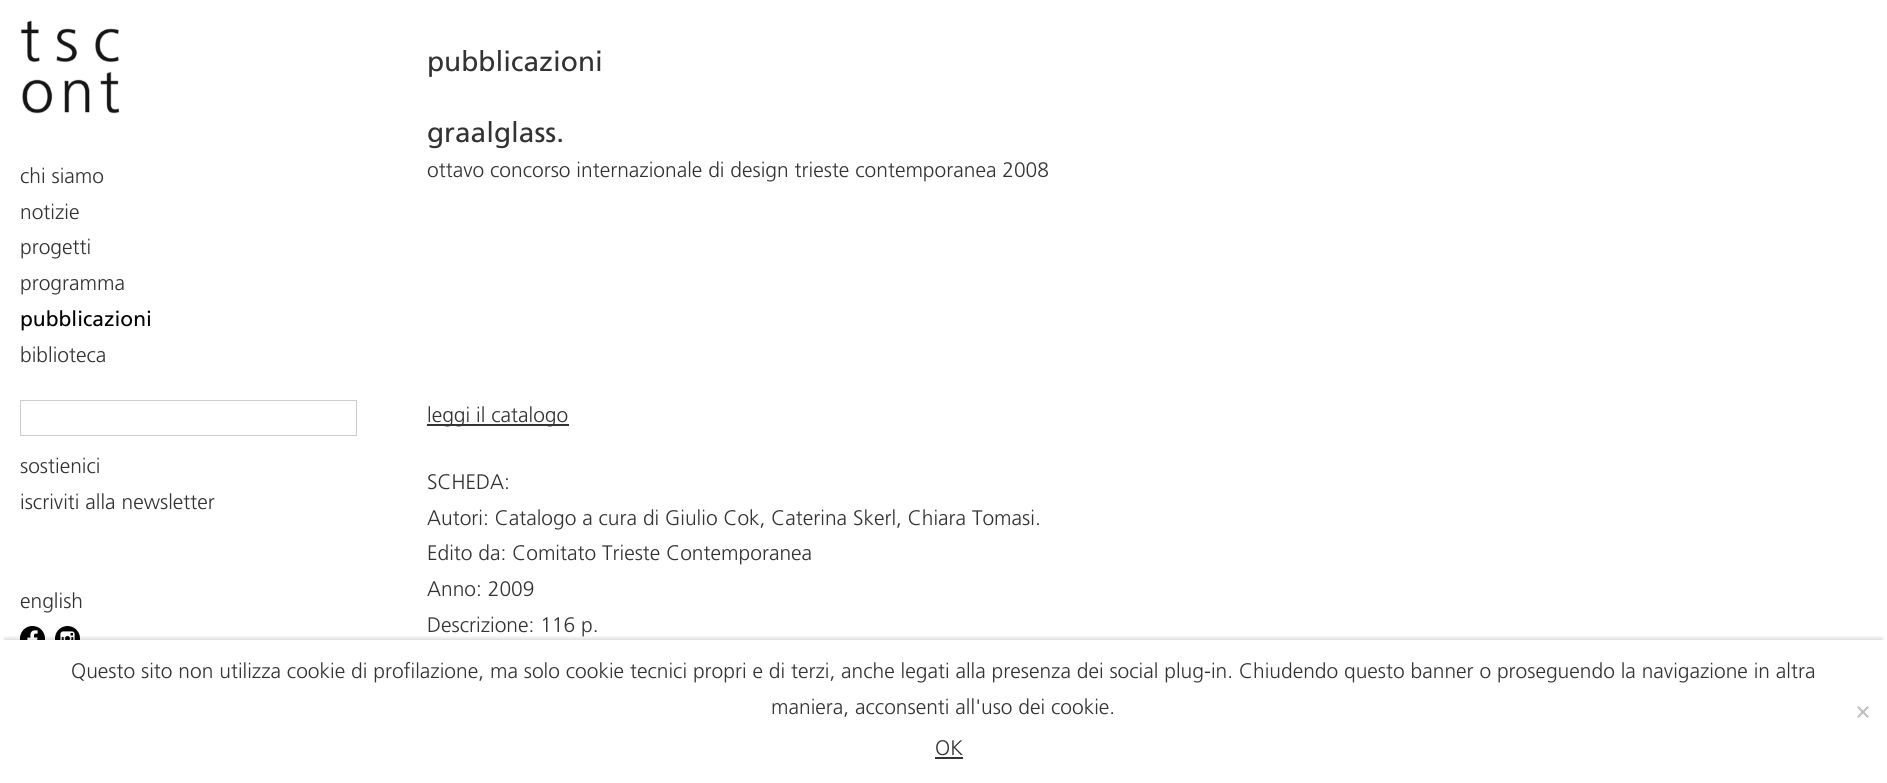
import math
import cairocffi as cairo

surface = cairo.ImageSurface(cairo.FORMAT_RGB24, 1887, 783)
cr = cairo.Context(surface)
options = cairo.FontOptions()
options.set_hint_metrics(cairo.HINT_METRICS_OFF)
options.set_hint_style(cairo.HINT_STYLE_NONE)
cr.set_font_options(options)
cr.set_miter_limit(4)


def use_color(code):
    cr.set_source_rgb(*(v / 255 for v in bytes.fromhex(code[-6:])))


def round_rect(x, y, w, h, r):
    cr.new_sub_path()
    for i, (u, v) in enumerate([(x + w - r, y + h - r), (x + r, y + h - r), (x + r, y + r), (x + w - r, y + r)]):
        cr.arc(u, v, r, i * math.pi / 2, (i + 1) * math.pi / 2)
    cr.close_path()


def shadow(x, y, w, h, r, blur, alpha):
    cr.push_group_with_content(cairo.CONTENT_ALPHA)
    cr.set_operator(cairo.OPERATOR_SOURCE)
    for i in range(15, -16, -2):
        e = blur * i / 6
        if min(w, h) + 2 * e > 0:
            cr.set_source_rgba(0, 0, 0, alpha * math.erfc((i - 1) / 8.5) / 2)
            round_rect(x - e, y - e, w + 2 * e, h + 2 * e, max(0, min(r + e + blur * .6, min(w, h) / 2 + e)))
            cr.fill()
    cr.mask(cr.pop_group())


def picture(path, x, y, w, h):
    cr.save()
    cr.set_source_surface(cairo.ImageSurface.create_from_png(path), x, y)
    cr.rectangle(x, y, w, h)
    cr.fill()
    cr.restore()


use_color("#ffffff")
cr.paint()
picture("img1.png", 20, 20, 100, 94)
cr.select_font_face("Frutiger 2")
cr.set_font_size(21)
use_color("#333333")
cr.move_to(20, 183)
cr.show_text("chi siamo")
cr.move_to(20, 219)
cr.show_text("notizie")
cr.move_to(20, 254)
cr.show_text("progetti")
cr.move_to(20, 290)
cr.show_text("programma")
cr.select_font_face("Frutiger")
use_color("#000000")
cr.move_to(20, 326)
cr.show_text("pubblicazioni")
cr.select_font_face("Frutiger 2")
use_color("#333333")
cr.move_to(20, 362)
cr.show_text("biblioteca")
cr.rectangle(20.5, 400.5, 336, 35)
use_color("#cccccc")
cr.set_line_width(1)
cr.stroke()
use_color("#333333")
cr.move_to(20, 473)
cr.show_text("sostienici")
cr.move_to(20, 509)
cr.show_text("iscriviti alla newsletter")
cr.move_to(20, 608)
cr.show_text("english")
picture("img2.png", 20, 626, 25, 14)
picture("img3.png", 55, 626, 25, 14)
cr.select_font_face("Frutiger")
cr.set_font_size(28)
cr.move_to(427, 71)
cr.show_text("pubblicazioni")
cr.move_to(427, 142)
cr.show_text("graalglass.")
cr.select_font_face("Frutiger 2")
cr.set_font_size(21)
cr.move_to(427, 177)
cr.show_text("ottavo concorso internazionale di design trieste contemporanea 2008")
cr.rectangle(427, 424, 142, 2)
cr.fill()
cr.move_to(427, 422)
cr.show_text("leggi il catalogo")
cr.move_to(427, 489)
cr.show_text("SCHEDA:")
cr.move_to(427, 525)
cr.show_text("Autori: Catalogo a cura di Giulio Cok, Caterina Skerl, Chiara Tomasi.")
cr.move_to(427, 560)
cr.show_text("Edito da: Comitato Trieste Contemporanea")
cr.move_to(427, 596)
cr.show_text("Anno: 2009")
cr.move_to(427, 632)
cr.show_text("Descrizione: 116 p.")
cr.save()
cr.rectangle(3, 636, 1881, 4)
cr.clip()
use_color("#000000")
shadow(5, 639, 1877, 133, 0, 2.5, 0.2)
cr.restore()
cr.move_to(71, 678)
cr.show_text("Questo sito non utilizza cookie di profilazione, ma solo cookie tecnici propri e di terzi, anche legati alla presenza dei social plug-in. Chiudendo questo banner o proseguendo la navigazione in altra")
cr.move_to(771, 714)
cr.show_text("maniera, acconsenti all'uso dei cookie.")
use_color("#c0c0c0")
cr.new_path()
cr.move_to(1867.5, 706)
cr.line_to(1869, 707.5)
cr.line_to(1858.5, 718)
cr.line_to(1857, 716.5)
cr.close_path()
cr.fill()
cr.new_path()
cr.move_to(1857, 707.5)
cr.line_to(1858.5, 706)
cr.line_to(1869, 716.5)
cr.line_to(1867.5, 718)
cr.close_path()
cr.fill()
use_color("#333333")
cr.move_to(935, 755)
cr.show_text("OK")
cr.rectangle(935, 757, 28, 2)
cr.fill()
surface.write_to_png("result.png")
